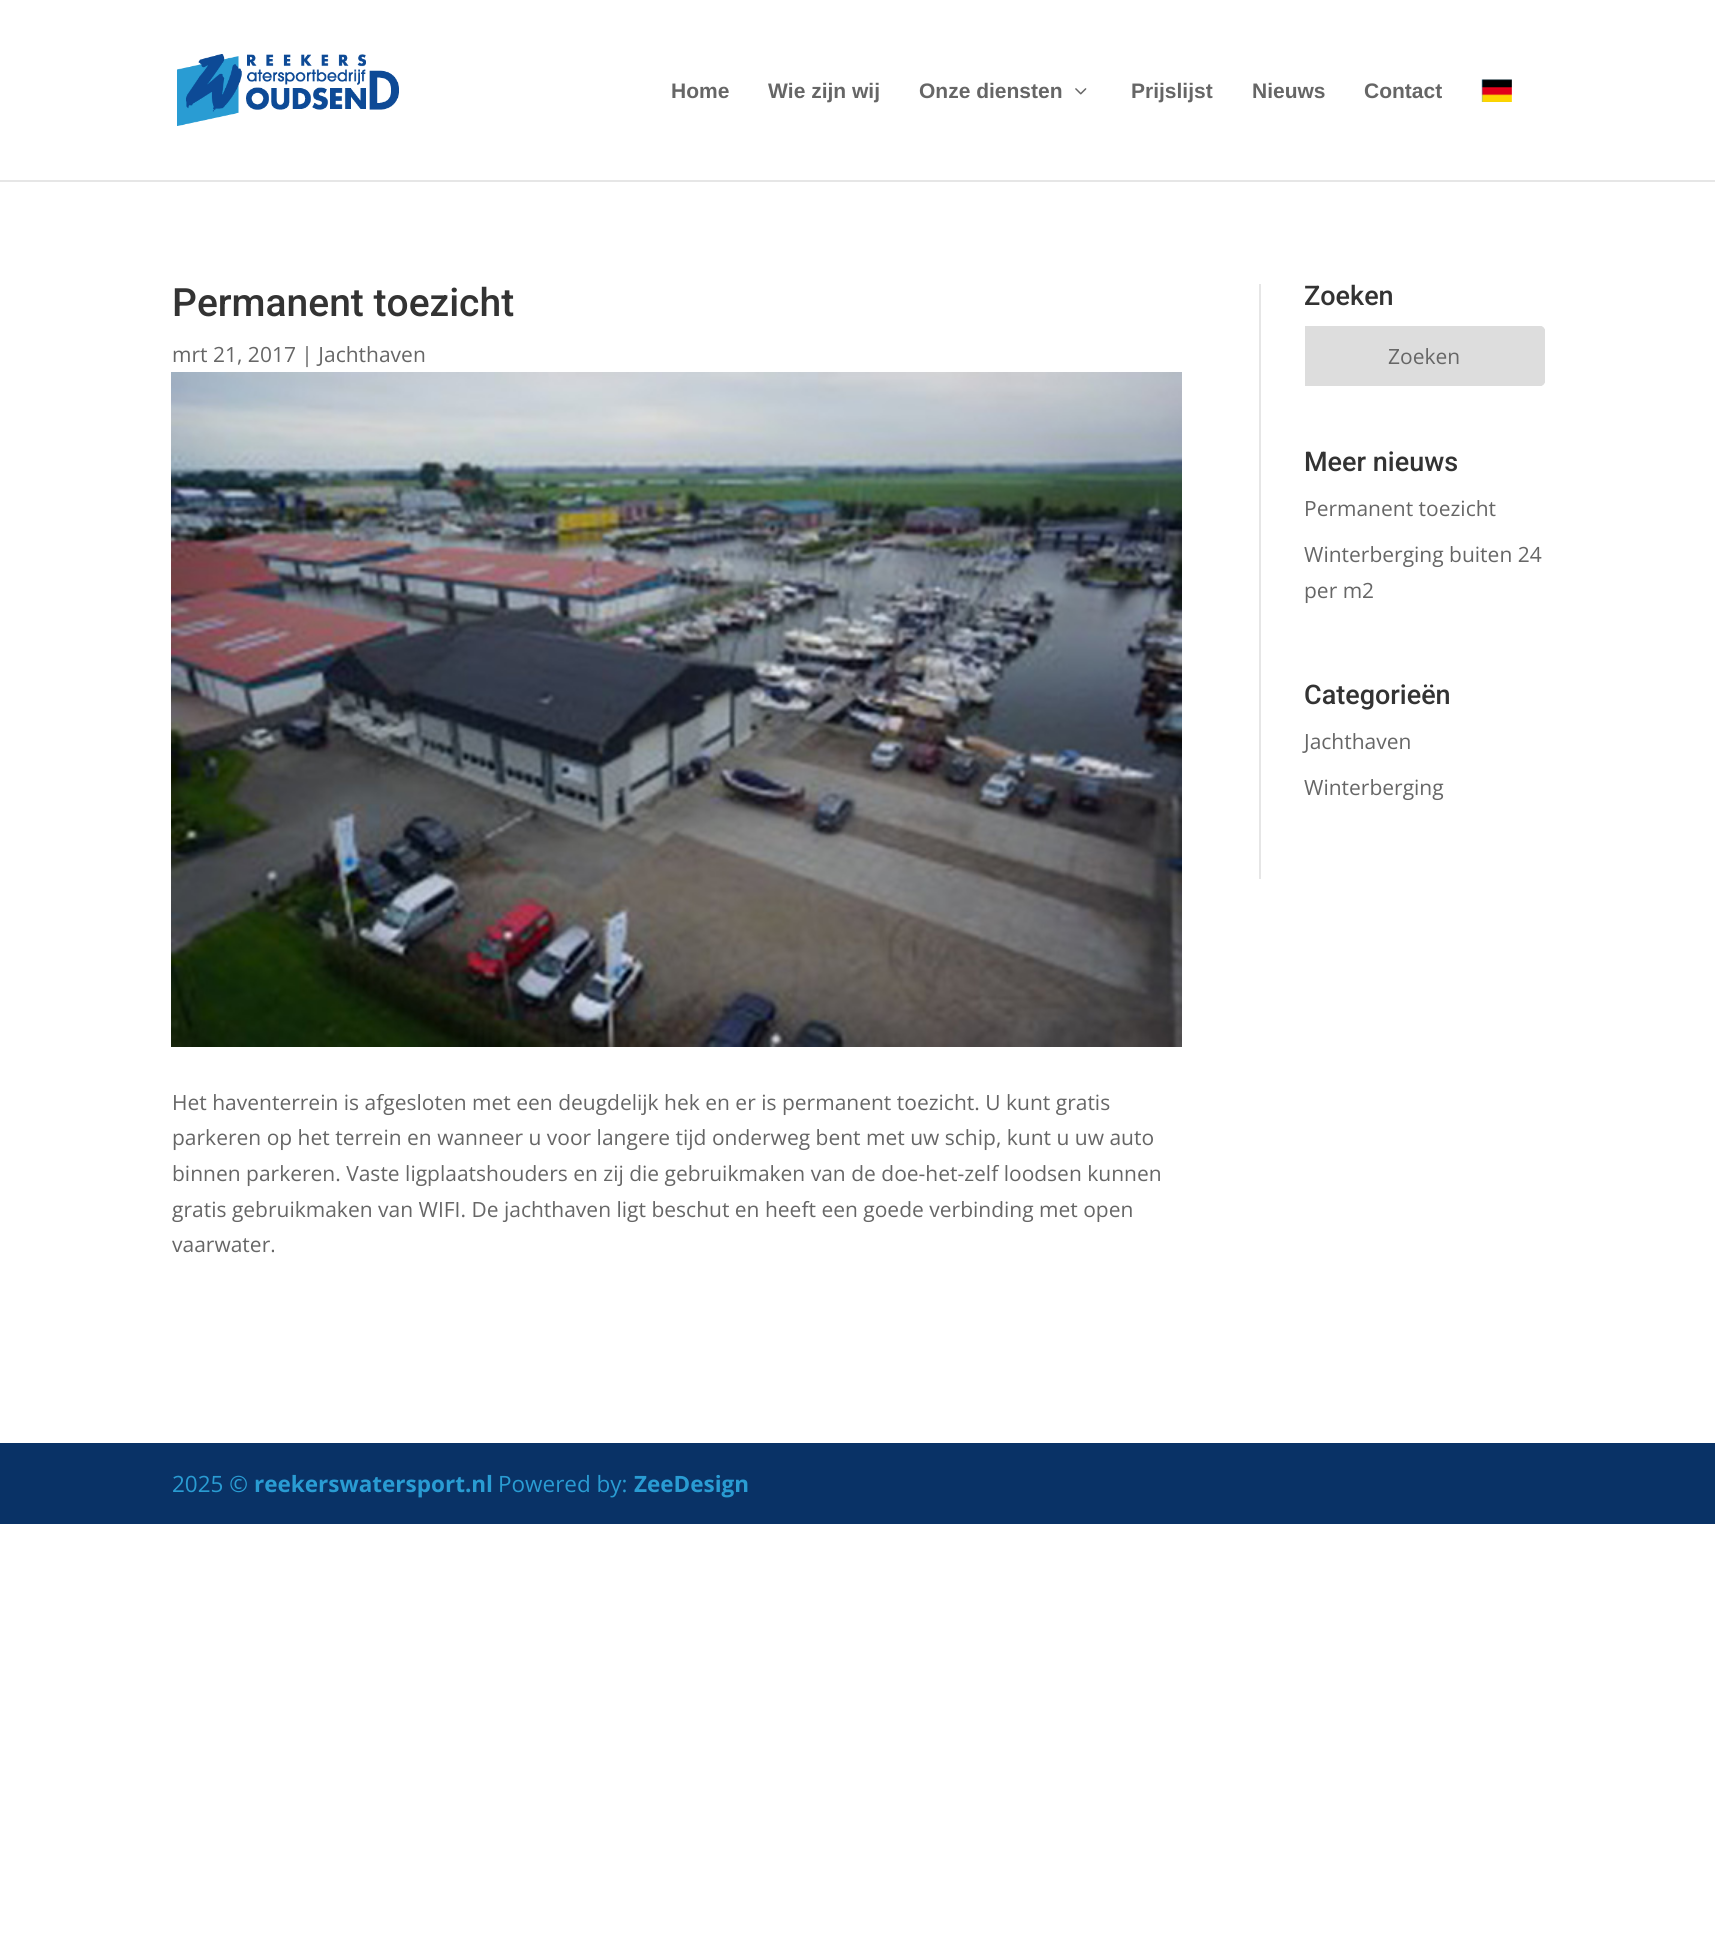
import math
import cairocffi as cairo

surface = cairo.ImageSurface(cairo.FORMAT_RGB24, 1715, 1954)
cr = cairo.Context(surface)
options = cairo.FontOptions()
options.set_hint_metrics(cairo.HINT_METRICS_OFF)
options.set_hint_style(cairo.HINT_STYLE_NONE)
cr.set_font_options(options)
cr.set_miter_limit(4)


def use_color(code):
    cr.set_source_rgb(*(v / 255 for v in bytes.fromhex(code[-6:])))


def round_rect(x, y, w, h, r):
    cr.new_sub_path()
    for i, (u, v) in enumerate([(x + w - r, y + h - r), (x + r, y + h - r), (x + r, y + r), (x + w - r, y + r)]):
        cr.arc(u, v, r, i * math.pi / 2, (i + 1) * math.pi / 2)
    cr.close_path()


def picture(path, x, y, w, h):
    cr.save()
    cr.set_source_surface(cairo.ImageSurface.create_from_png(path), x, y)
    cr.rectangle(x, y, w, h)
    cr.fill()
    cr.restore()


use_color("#ffffff")
cr.paint()
use_color("#e6e6e6")
cr.rectangle(0, 180, 1715, 2)
cr.fill()
picture("img1.png", 177, 54, 222, 72)
cr.select_font_face("Liberation Sans", cairo.FONT_SLANT_NORMAL, cairo.FONT_WEIGHT_BOLD)
cr.set_font_size(21)
use_color("#666666")
cr.move_to(671, 98)
cr.show_text("Home")
cr.move_to(768, 98)
cr.show_text("Wie zijn wij")
cr.move_to(919, 98)
cr.show_text("Onze diensten")
picture("img2.png", 1075, 88, 12, 7)
cr.move_to(1131, 98)
cr.show_text("Prijslijst")
cr.move_to(1252, 98)
cr.show_text("Nieuws")
cr.move_to(1364, 98)
cr.show_text("Contact")
picture("img3.png", 1481, 79, 31, 23)
cr.select_font_face("Roboto Medium")
cr.set_font_size(39)
use_color("#333333")
cr.move_to(172, 316)
cr.show_text("Permanent toezicht")
cr.select_font_face("Open Sans")
cr.set_font_size(21)
use_color("#666666")
cr.move_to(172, 362)
cr.show_text("mrt 21, 2017 | Jachthaven")
picture("img4.png", 171, 372, 1011, 675)
cr.move_to(172, 1110)
cr.show_text("Het haventerrein is afgesloten met een deugdelijk hek en er is permanent toezicht. U kunt gratis")
cr.move_to(172, 1145)
cr.show_text("parkeren op het terrein en wanneer u voor langere tijd onderweg bent met uw schip, kunt u uw auto")
cr.move_to(172, 1181)
cr.show_text("binnen parkeren. Vaste ligplaatshouders en zij die gebruikmaken van de doe-het-zelf loodsen kunnen")
cr.move_to(172, 1217)
cr.show_text("gratis gebruikmaken van WIFI. De jachthaven ligt beschut en heeft een goede verbinding met open")
cr.move_to(172, 1252)
cr.show_text("vaarwater.")
use_color("#e6e6e6")
cr.rectangle(1259, 284, 2, 595)
cr.fill()
cr.select_font_face("Roboto Medium")
cr.set_font_size(27)
use_color("#333333")
cr.move_to(1304, 305)
cr.show_text("Zoeken")
round_rect(1306, 327, 238, 58, 4)
use_color("#dddddd")
cr.stroke()
cr.new_path()
cr.move_to(1306, 327)
cr.line_to(1540, 327)
cr.curve_to(1542, 327, 1544, 329, 1544, 331)
cr.line_to(1544, 381)
cr.curve_to(1544, 383, 1542, 385, 1540, 385)
cr.line_to(1306, 385)
cr.close_path()
cr.fill_preserve()
cr.stroke()
cr.select_font_face("Open Sans")
cr.set_font_size(21)
use_color("#666666")
cr.move_to(1388, 364)
cr.show_text("Zoeken")
cr.select_font_face("Roboto Medium")
cr.set_font_size(27)
use_color("#333333")
cr.move_to(1304, 471)
cr.show_text("Meer nieuws")
cr.select_font_face("Open Sans")
cr.set_font_size(21)
use_color("#666666")
cr.move_to(1304, 516)
cr.show_text("Permanent toezicht")
cr.move_to(1304, 562)
cr.show_text("Winterberging buiten 24")
cr.move_to(1304, 598)
cr.show_text("per m2")
cr.select_font_face("Roboto Medium")
cr.set_font_size(27)
use_color("#333333")
cr.move_to(1304, 704)
cr.show_text("Categorieën")
cr.select_font_face("Open Sans")
cr.set_font_size(21)
use_color("#666666")
cr.move_to(1304, 749)
cr.show_text("Jachthaven")
cr.move_to(1304, 795)
cr.show_text("Winterberging")
use_color("#093266")
cr.rectangle(0, 1443, 1715, 81)
cr.fill()
cr.set_font_size(22.5)
use_color("#299cd3")
cr.move_to(172, 1492)
cr.show_text("2025 ©")
cr.select_font_face("Open Sans", cairo.FONT_SLANT_NORMAL, cairo.FONT_WEIGHT_BOLD)
cr.move_to(254, 1492)
cr.show_text("reekerswatersport.nl")
cr.select_font_face("Open Sans")
cr.move_to(498, 1492)
cr.show_text("Powered by:")
cr.select_font_face("Open Sans", cairo.FONT_SLANT_NORMAL, cairo.FONT_WEIGHT_BOLD)
cr.move_to(634, 1492)
cr.show_text("ZeeDesign")
surface.write_to_png("result.png")
